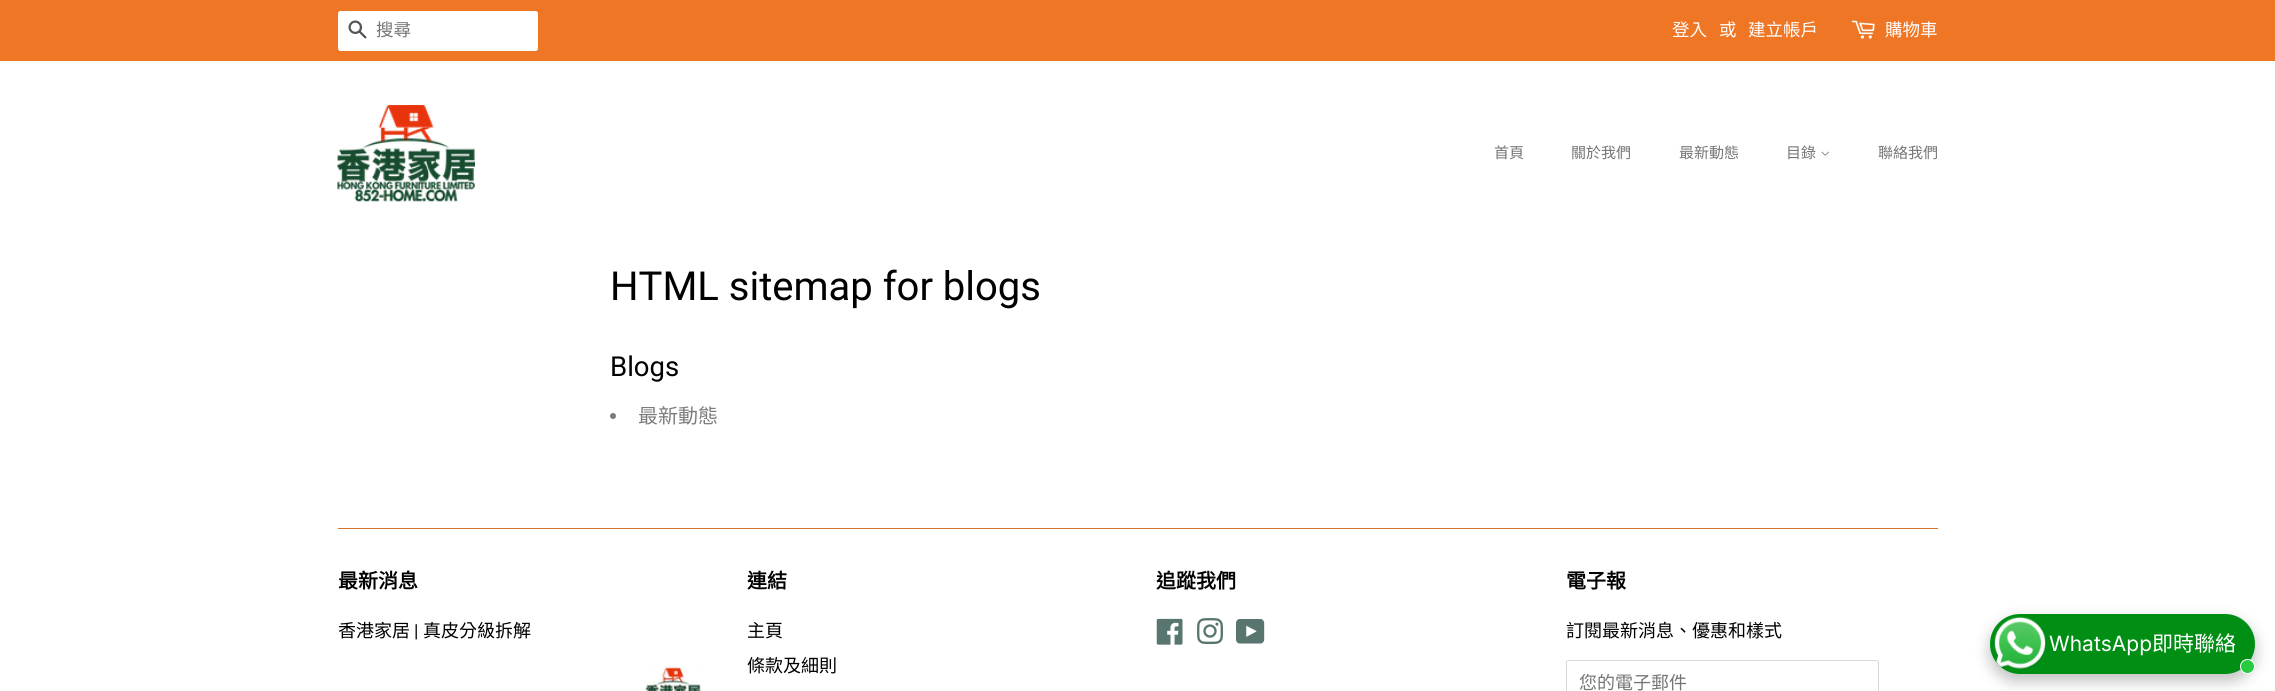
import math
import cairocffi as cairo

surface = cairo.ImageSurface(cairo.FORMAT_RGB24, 2275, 691)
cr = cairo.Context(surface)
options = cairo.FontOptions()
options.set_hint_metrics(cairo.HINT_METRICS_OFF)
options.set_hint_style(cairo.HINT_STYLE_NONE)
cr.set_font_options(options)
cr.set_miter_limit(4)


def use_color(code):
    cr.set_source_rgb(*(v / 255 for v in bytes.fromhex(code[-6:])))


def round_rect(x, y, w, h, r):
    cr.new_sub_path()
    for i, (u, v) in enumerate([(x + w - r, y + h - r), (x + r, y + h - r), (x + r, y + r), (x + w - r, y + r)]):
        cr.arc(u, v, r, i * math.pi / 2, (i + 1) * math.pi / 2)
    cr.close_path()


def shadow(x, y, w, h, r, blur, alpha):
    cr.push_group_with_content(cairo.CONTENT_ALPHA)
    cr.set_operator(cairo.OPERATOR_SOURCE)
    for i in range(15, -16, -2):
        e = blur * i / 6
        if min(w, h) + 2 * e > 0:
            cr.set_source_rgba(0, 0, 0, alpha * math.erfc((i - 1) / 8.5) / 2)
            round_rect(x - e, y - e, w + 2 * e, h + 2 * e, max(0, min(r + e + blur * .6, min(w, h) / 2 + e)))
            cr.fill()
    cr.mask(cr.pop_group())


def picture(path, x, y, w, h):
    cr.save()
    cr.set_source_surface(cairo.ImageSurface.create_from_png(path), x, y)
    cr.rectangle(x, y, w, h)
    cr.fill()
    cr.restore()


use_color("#ffffff")
cr.paint()
use_color("#ef7625")
cr.rectangle(0, 0, 2275, 61)
cr.fill()
use_color("#ffffff")
round_rect(338, 11, 200, 40, 2.5)
cr.fill()
picture("img1.png", 348, 20, 19, 19)
cr.select_font_face("Noto Sans CJK TC")
cr.set_font_size(17.5)
use_color("#757575")
cr.move_to(376, 36)
cr.show_text("搜尋")
use_color("#ffffff")
cr.move_to(1672, 36)
cr.show_text("登入")
cr.move_to(1719, 36)
cr.show_text("或")
cr.move_to(1748, 36)
cr.show_text("建立帳戶")
picture("img2.png", 1851, 20, 24, 19)
cr.move_to(1885, 36)
cr.show_text("購物車")
picture("img3.png", 337, 105, 138, 97)
cr.set_font_size(15)
use_color("#757575")
cr.move_to(1494, 158)
cr.show_text("首頁")
cr.move_to(1571, 158)
cr.show_text("關於我們")
cr.move_to(1679, 158)
cr.show_text("最新動態")
cr.move_to(1786, 158)
cr.show_text("目錄")
picture("img4.png", 1821, 151, 8, 5)
cr.move_to(1878, 158)
cr.show_text("聯絡我們")
cr.select_font_face("Roboto")
cr.set_font_size(40)
use_color("#000000")
cr.move_to(610, 300)
cr.show_text("HTML sitemap for blogs")
cr.set_font_size(27.5)
cr.move_to(610, 376)
cr.show_text("Blogs")
use_color("#7c7c7c")
cr.new_path()
cr.arc(613, 416, 3, 0, 2 * math.pi)
cr.fill()
cr.select_font_face("Noto Sans CJK TC")
cr.set_font_size(20)
cr.move_to(638, 423)
cr.show_text("最新動態")
use_color("#d6722f")
cr.rectangle(338, 528, 1600, 1)
cr.fill()
cr.select_font_face("Noto Sans CJK TC", cairo.FONT_SLANT_NORMAL, cairo.FONT_WEIGHT_BOLD)
use_color("#000000")
cr.move_to(338, 588)
cr.show_text("最新消息")
cr.select_font_face("Noto Sans CJK TC")
cr.set_font_size(18)
cr.move_to(338, 637)
cr.show_text("香港家居")
cr.select_font_face("Roboto")
cr.move_to(414, 637)
cr.show_text("|")
cr.select_font_face("Noto Sans CJK TC")
cr.move_to(423, 637)
cr.show_text("真皮分級拆解")
picture("img5.png", 645, 665, 57, 26)
cr.select_font_face("Noto Sans CJK TC", cairo.FONT_SLANT_NORMAL, cairo.FONT_WEIGHT_BOLD)
cr.set_font_size(20)
cr.move_to(747, 588)
cr.show_text("連結")
cr.select_font_face("Noto Sans CJK TC")
cr.set_font_size(18)
cr.move_to(747, 637)
cr.show_text("主頁")
cr.move_to(747, 672)
cr.show_text("條款及細則")
cr.select_font_face("Noto Sans CJK TC", cairo.FONT_SLANT_NORMAL, cairo.FONT_WEIGHT_BOLD)
cr.set_font_size(20)
cr.move_to(1156, 588)
cr.show_text("追蹤我們")
picture("img6.png", 1156, 618, 27, 27)
picture("img7.png", 1197, 618, 26, 26)
picture("img8.png", 1236, 619, 29, 25)
cr.move_to(1566, 588)
cr.show_text("電子報")
cr.select_font_face("Noto Sans CJK TC")
cr.set_font_size(18)
cr.move_to(1566, 637)
cr.show_text("訂閱最新消息、優惠和樣式")
round_rect(1566.5, 660.5, 312, 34, 2)
use_color("#d9d9d9")
cr.set_line_width(1)
cr.stroke()
use_color("#757575")
cr.move_to(1579, 689)
cr.show_text("您的電子郵件")
use_color("#000000")
shadow(1990, 621, 265, 60, 30, 7.5, 0.25)
use_color("#008f14")
round_rect(1990, 614, 265, 60, 30)
cr.fill()
picture("img9.png", 1994, 616, 52, 54)
cr.select_font_face("Inter")
cr.set_font_size(21)
use_color("#ffffff")
cr.move_to(2049, 651)
cr.show_text("WhatsApp")
cr.select_font_face("Noto Sans CJK TC")
cr.move_to(2152, 651)
cr.show_text("即時聯絡")
use_color("#27ca40")
cr.new_path()
cr.arc(2247.5, 666.5, 7, 0, 2 * math.pi)
cr.fill_preserve()
use_color("#ffffff")
cr.stroke()
surface.write_to_png("result.png")
